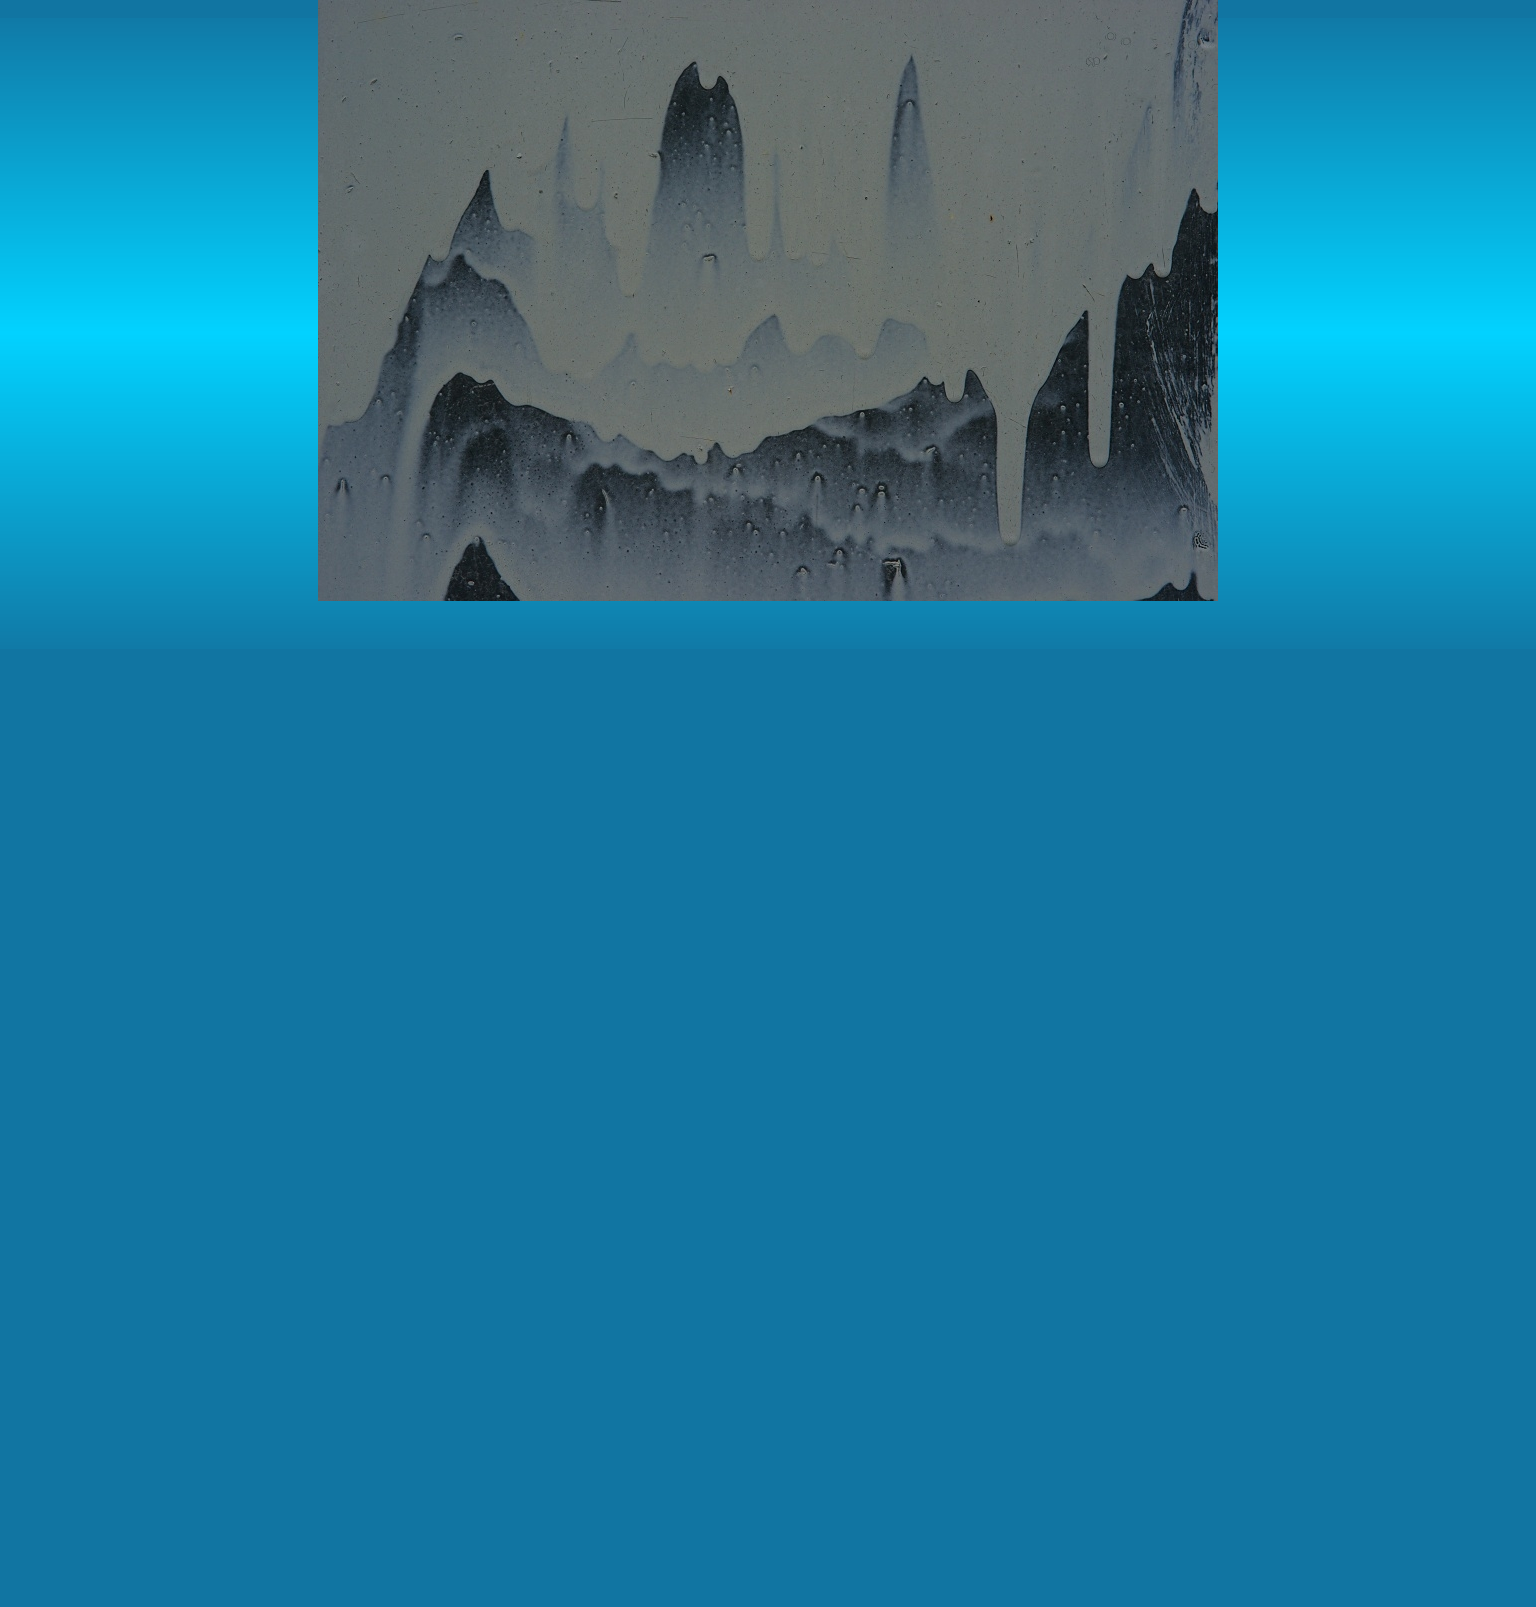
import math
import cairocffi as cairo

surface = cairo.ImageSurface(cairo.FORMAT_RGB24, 1536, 1607)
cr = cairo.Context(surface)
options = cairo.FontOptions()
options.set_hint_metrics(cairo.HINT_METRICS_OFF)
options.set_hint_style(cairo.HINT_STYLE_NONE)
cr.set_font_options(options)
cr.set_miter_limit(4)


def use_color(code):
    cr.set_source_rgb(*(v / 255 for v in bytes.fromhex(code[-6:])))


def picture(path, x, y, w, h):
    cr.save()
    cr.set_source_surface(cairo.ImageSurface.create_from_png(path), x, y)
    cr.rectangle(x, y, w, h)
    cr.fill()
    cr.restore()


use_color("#1175a2")
cr.paint()
picture("img1.png", 0, 601, 1536, 48)
picture("img2.png", 0, 18, 1536, 583)
picture("img3.png", 318, 0, 900, 601)
surface.write_to_png("result.png")
